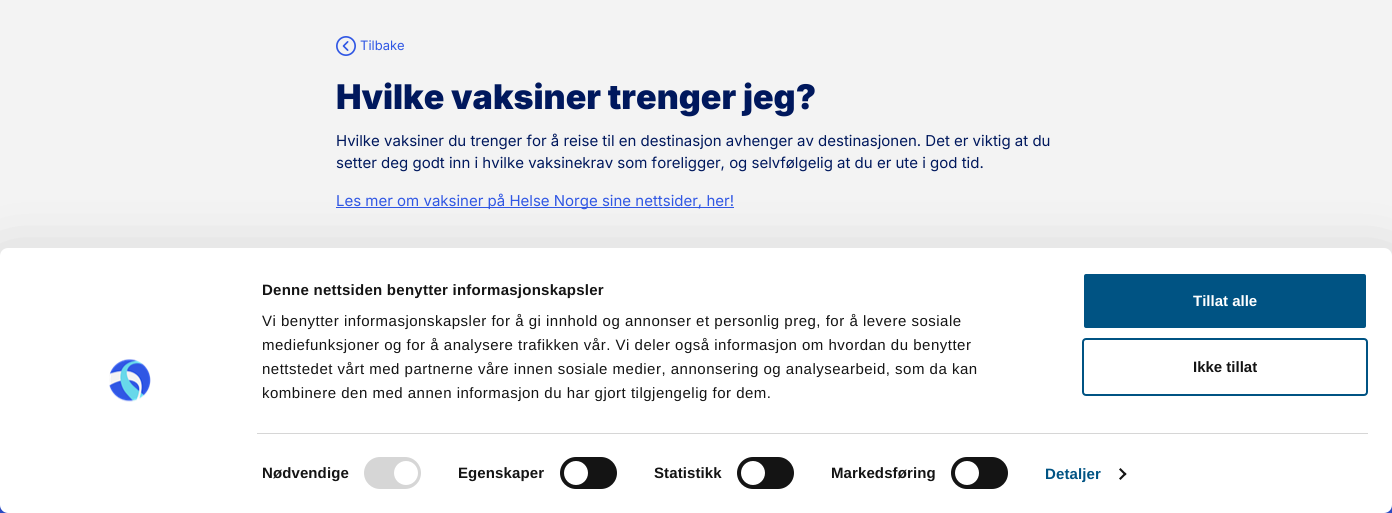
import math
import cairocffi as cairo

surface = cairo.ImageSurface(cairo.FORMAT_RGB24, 1392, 513)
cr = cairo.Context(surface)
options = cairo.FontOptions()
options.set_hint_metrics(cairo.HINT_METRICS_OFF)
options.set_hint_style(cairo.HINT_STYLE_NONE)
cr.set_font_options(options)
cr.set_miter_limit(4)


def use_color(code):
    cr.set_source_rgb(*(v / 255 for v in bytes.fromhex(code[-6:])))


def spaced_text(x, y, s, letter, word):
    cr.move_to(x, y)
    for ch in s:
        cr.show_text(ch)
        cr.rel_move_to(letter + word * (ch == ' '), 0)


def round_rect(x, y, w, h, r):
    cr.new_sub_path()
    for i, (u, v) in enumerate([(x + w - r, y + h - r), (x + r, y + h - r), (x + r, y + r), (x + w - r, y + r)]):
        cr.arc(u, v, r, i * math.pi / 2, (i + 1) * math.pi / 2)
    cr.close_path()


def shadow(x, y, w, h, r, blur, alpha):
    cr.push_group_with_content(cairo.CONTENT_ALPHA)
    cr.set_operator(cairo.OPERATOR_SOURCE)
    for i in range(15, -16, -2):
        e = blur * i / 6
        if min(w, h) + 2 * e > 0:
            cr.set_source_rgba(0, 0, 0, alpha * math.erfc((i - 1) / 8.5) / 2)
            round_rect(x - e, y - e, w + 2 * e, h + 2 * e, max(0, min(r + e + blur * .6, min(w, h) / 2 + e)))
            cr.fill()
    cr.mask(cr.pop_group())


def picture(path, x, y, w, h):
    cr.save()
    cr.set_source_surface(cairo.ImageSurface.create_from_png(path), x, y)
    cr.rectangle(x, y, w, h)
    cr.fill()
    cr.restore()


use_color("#f3f3f3")
cr.paint()
picture("img1.png", 336, 36, 20, 20)
cr.select_font_face("Inter")
cr.set_font_size(13)
use_color("#3057e4")
cr.move_to(360, 50)
cr.show_text("Tilbake")
cr.select_font_face("Inter Black")
cr.set_font_size(34)
use_color("#00185d")
cr.move_to(336, 109)
cr.show_text("Hvilke vaksiner trenger jeg?")
cr.select_font_face("Inter")
cr.set_font_size(15)
cr.move_to(336, 146)
cr.show_text("Hvilke vaksiner du trenger for å reise til en destinasjon avhenger av destinasjonen. Det er viktig at du")
cr.move_to(336, 168)
cr.show_text("setter deg godt inn i hvilke vaksinekrav som foreligger, og selvfølgelig at du er ute i god tid.")
use_color("#3057e4")
cr.rectangle(336, 207, 398, 1)
cr.fill()
cr.move_to(336, 206)
cr.show_text("Les mer om vaksiner på Helse Norge sine nettsider, her!")
cr.rectangle(0, 505, 1392, 8)
cr.fill()
use_color("#000000")
shadow(0, 278, 1392, 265, 8, 35, 0.3)
use_color("#ffffff")
round_rect(0, 248, 1392, 265, 8)
cr.fill()
cr.select_font_face("Liberation Sans", cairo.FONT_SLANT_NORMAL, cairo.FONT_WEIGHT_BOLD)
use_color("#141414")
spaced_text(262, 295, "Denne nettsiden benytter informasjonskapsler", 0.25, 0)
cr.select_font_face("Liberation Sans")
spaced_text(262, 326, "Vi benytter informasjonskapsler for å gi innhold og annonser et personlig preg, for å levere sosiale", 0.5, 0)
spaced_text(262, 350, "mediefunksjoner og for å analysere trafikken vår. Vi deler også informasjon om hvordan du benytter", 0.5, 0)
spaced_text(262, 374, "nettstedet vårt med partnerne våre innen sosiale medier, annonsering og analysearbeid, som da kan", 0.5, 0)
spaced_text(262, 398, "kombinere den med annen informasjon du har gjort tilgjengelig for dem.", 0.5, 0)
use_color("#d6d6d6")
cr.rectangle(257, 433, 1111, 1)
cr.fill()
cr.select_font_face("Liberation Sans", cairo.FONT_SLANT_NORMAL, cairo.FONT_WEIGHT_BOLD)
use_color("#141414")
spaced_text(262, 478, "Nødvendige", 0.1, 0)
use_color("#d6d6d6")
round_rect(364, 457, 57, 32, 16)
cr.fill()
use_color("#ffffff")
cr.arc(406, 473, 12, 0, 2 * math.pi)
cr.fill()
use_color("#141414")
spaced_text(458, 478, "Egenskaper", 0.1, 0)
round_rect(560, 457, 57, 32, 16)
cr.fill()
use_color("#ffffff")
cr.arc(576, 473, 12, 0, 2 * math.pi)
cr.fill()
use_color("#141414")
spaced_text(654, 478, "Statistikk", 0.1, 0)
round_rect(737, 457, 57, 32, 16)
cr.fill()
use_color("#ffffff")
cr.arc(753, 473, 12, 0, 2 * math.pi)
cr.fill()
use_color("#141414")
spaced_text(831, 478, "Markedsføring", 0.1, 0)
round_rect(951, 457, 57, 32, 16)
cr.fill()
use_color("#ffffff")
cr.arc(967, 473, 12, 0, 2 * math.pi)
cr.fill()
use_color("#005383")
spaced_text(1045, 479, "Detaljer", 0.1, 0)
use_color("#141414")
cr.new_path()
cr.move_to(1120.5, 468)
cr.line_to(1126.5, 474)
cr.line_to(1125, 475.5)
cr.line_to(1119, 469.5)
cr.close_path()
cr.fill()
cr.new_path()
cr.move_to(1125, 472.5)
cr.line_to(1126.5, 474)
cr.line_to(1120.5, 480)
cr.line_to(1119, 478.5)
cr.close_path()
cr.fill()
use_color("#005383")
round_rect(1083, 273, 284, 56, 3)
cr.fill_preserve()
use_color("#ffffff")
cr.stroke()
cr.move_to(1193, 306)
cr.show_text("Tillat alle")
round_rect(1083, 339, 284, 56, 3)
use_color("#005383")
cr.stroke()
use_color("#141414")
cr.move_to(1193, 372)
cr.show_text("Ikke tillat")
picture("img2.png", 109, 359, 42, 43)
surface.write_to_png("result.png")
